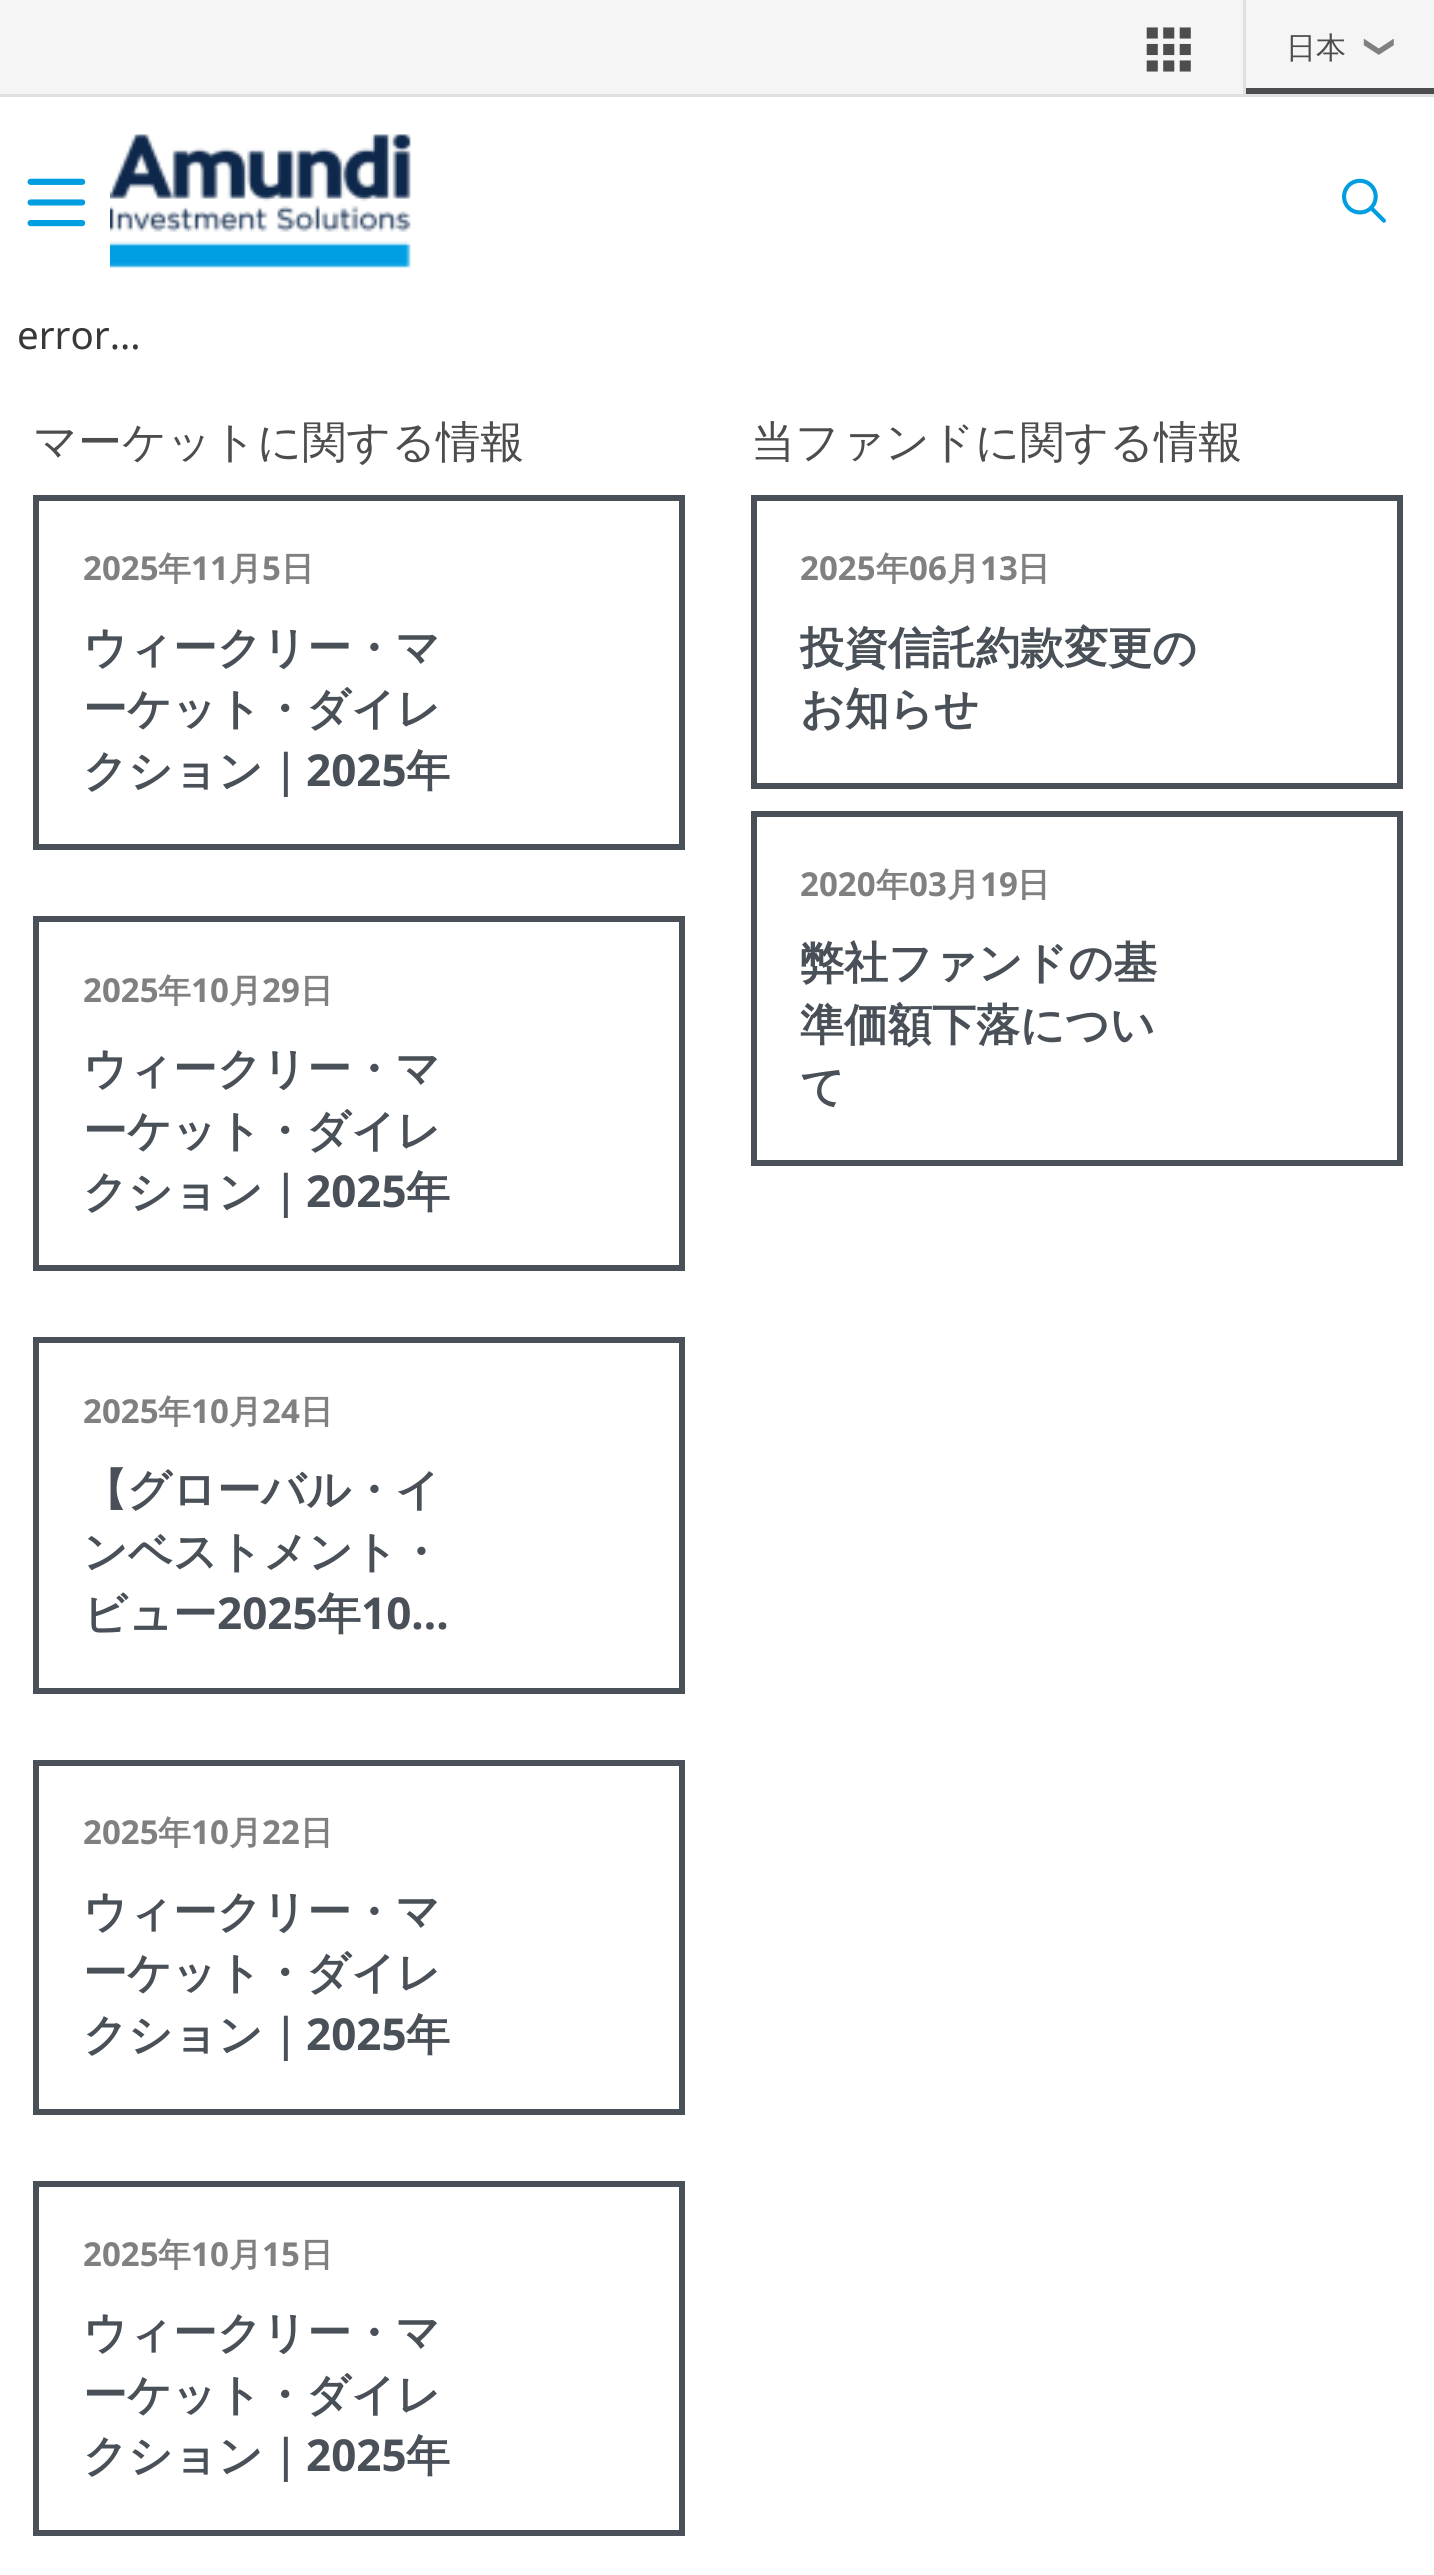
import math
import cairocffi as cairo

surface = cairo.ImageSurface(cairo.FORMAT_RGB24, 1434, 2575)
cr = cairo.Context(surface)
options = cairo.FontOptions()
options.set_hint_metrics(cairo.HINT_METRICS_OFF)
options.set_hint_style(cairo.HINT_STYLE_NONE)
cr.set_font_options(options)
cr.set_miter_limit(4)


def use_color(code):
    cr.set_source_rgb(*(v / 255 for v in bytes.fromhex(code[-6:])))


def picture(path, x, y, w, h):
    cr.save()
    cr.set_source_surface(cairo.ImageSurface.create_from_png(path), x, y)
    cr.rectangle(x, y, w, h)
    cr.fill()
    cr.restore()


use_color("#ffffff")
cr.paint()
use_color("#f5f5f5")
cr.rectangle(0, 0, 1434, 94)
cr.fill()
use_color("#e0e0e0")
cr.rectangle(0, 94, 1434, 3)
cr.fill()
picture("img1.png", 1146, 27, 45, 45)
cr.rectangle(1243, 0, 3, 94)
cr.fill()
use_color("#4d4d4f")
cr.rectangle(1246, 88, 188, 6)
cr.fill()
cr.select_font_face("WenQuanYi Zen Hei Medium")
cr.set_font_size(30)
cr.move_to(1286, 58)
cr.show_text("日本")
cr.select_font_face("DejaVu Sans")
use_color("#808080")
cr.save()
cr.translate(1371, 34)
cr.rotate(90 * math.pi / 180)
cr.move_to(0, 0)
cr.show_text("❯")
cr.restore()
picture("img2.png", 27, 178, 59, 49)
picture("img3.png", 110, 134, 301, 134)
picture("img4.png", 1342, 178, 44, 45)
cr.select_font_face("Noto Sans")
cr.set_font_size(38.5)
use_color("#383838")
cr.move_to(17, 349)
cr.show_text("error...")
cr.select_font_face("WenQuanYi Zen Hei Medium")
cr.set_font_size(44)
use_color("#4d4d4f")
cr.move_to(33, 457)
cr.show_text("マーケットに関する情報")
cr.rectangle(36, 498, 646, 349)
use_color("#495057")
cr.set_line_width(6)
cr.stroke()
cr.select_font_face("Noto Sans", cairo.FONT_SLANT_NORMAL, cairo.FONT_WEIGHT_BOLD)
cr.set_font_size(33)
use_color("#808080")
cr.move_to(83, 580)
cr.show_text("2025")
cr.select_font_face("WenQuanYi Zen Hei", cairo.FONT_SLANT_NORMAL, cairo.FONT_WEIGHT_BOLD)
cr.move_to(158, 580)
cr.show_text("年")
cr.select_font_face("Noto Sans", cairo.FONT_SLANT_NORMAL, cairo.FONT_WEIGHT_BOLD)
cr.move_to(191, 580)
cr.show_text("11")
cr.select_font_face("WenQuanYi Zen Hei", cairo.FONT_SLANT_NORMAL, cairo.FONT_WEIGHT_BOLD)
cr.move_to(229, 580)
cr.show_text("月")
cr.select_font_face("Noto Sans", cairo.FONT_SLANT_NORMAL, cairo.FONT_WEIGHT_BOLD)
cr.move_to(262, 580)
cr.show_text("5")
cr.select_font_face("WenQuanYi Zen Hei", cairo.FONT_SLANT_NORMAL, cairo.FONT_WEIGHT_BOLD)
cr.move_to(281, 580)
cr.show_text("日")
cr.set_font_size(44)
use_color("#495057")
cr.move_to(83, 663)
cr.show_text("ウィークリー・マ")
cr.move_to(83, 724)
cr.show_text("ーケット・ダイレ")
cr.move_to(83, 786)
cr.show_text("クション｜")
cr.select_font_face("Noto Sans", cairo.FONT_SLANT_NORMAL, cairo.FONT_WEIGHT_BOLD)
cr.move_to(306, 786)
cr.show_text("2025")
cr.select_font_face("WenQuanYi Zen Hei", cairo.FONT_SLANT_NORMAL, cairo.FONT_WEIGHT_BOLD)
cr.move_to(406, 786)
cr.show_text("年")
cr.rectangle(36, 919, 646, 349)
cr.stroke()
cr.select_font_face("Noto Sans", cairo.FONT_SLANT_NORMAL, cairo.FONT_WEIGHT_BOLD)
cr.set_font_size(33)
use_color("#808080")
cr.move_to(83, 1002)
cr.show_text("2025")
cr.select_font_face("WenQuanYi Zen Hei", cairo.FONT_SLANT_NORMAL, cairo.FONT_WEIGHT_BOLD)
cr.move_to(158, 1002)
cr.show_text("年")
cr.select_font_face("Noto Sans", cairo.FONT_SLANT_NORMAL, cairo.FONT_WEIGHT_BOLD)
cr.move_to(191, 1002)
cr.show_text("10")
cr.select_font_face("WenQuanYi Zen Hei", cairo.FONT_SLANT_NORMAL, cairo.FONT_WEIGHT_BOLD)
cr.move_to(229, 1002)
cr.show_text("月")
cr.select_font_face("Noto Sans", cairo.FONT_SLANT_NORMAL, cairo.FONT_WEIGHT_BOLD)
cr.move_to(262, 1002)
cr.show_text("29")
cr.select_font_face("WenQuanYi Zen Hei", cairo.FONT_SLANT_NORMAL, cairo.FONT_WEIGHT_BOLD)
cr.move_to(300, 1002)
cr.show_text("日")
cr.set_font_size(44)
use_color("#495057")
cr.move_to(83, 1084)
cr.show_text("ウィークリー・マ")
cr.move_to(83, 1146)
cr.show_text("ーケット・ダイレ")
cr.move_to(83, 1207)
cr.show_text("クション｜")
cr.select_font_face("Noto Sans", cairo.FONT_SLANT_NORMAL, cairo.FONT_WEIGHT_BOLD)
cr.move_to(306, 1207)
cr.show_text("2025")
cr.select_font_face("WenQuanYi Zen Hei", cairo.FONT_SLANT_NORMAL, cairo.FONT_WEIGHT_BOLD)
cr.move_to(406, 1207)
cr.show_text("年")
cr.rectangle(36, 1340, 646, 351)
cr.stroke()
cr.select_font_face("Noto Sans", cairo.FONT_SLANT_NORMAL, cairo.FONT_WEIGHT_BOLD)
cr.set_font_size(33)
use_color("#808080")
cr.move_to(83, 1423)
cr.show_text("2025")
cr.select_font_face("WenQuanYi Zen Hei", cairo.FONT_SLANT_NORMAL, cairo.FONT_WEIGHT_BOLD)
cr.move_to(158, 1423)
cr.show_text("年")
cr.select_font_face("Noto Sans", cairo.FONT_SLANT_NORMAL, cairo.FONT_WEIGHT_BOLD)
cr.move_to(191, 1423)
cr.show_text("10")
cr.select_font_face("WenQuanYi Zen Hei", cairo.FONT_SLANT_NORMAL, cairo.FONT_WEIGHT_BOLD)
cr.move_to(229, 1423)
cr.show_text("月")
cr.select_font_face("Noto Sans", cairo.FONT_SLANT_NORMAL, cairo.FONT_WEIGHT_BOLD)
cr.move_to(262, 1423)
cr.show_text("24")
cr.select_font_face("WenQuanYi Zen Hei", cairo.FONT_SLANT_NORMAL, cairo.FONT_WEIGHT_BOLD)
cr.move_to(300, 1423)
cr.show_text("日")
cr.set_font_size(44)
use_color("#495057")
cr.move_to(83, 1505)
cr.show_text("【グローバル・イ")
cr.move_to(83, 1567)
cr.show_text("ンベストメント・")
cr.move_to(83, 1629)
cr.show_text("ビュー")
cr.select_font_face("Noto Sans", cairo.FONT_SLANT_NORMAL, cairo.FONT_WEIGHT_BOLD)
cr.move_to(217, 1629)
cr.show_text("2025")
cr.select_font_face("WenQuanYi Zen Hei", cairo.FONT_SLANT_NORMAL, cairo.FONT_WEIGHT_BOLD)
cr.move_to(317, 1629)
cr.show_text("年")
cr.select_font_face("Noto Sans", cairo.FONT_SLANT_NORMAL, cairo.FONT_WEIGHT_BOLD)
cr.move_to(361, 1629)
cr.show_text("10…")
cr.rectangle(36, 1763, 646, 349)
cr.stroke()
cr.set_font_size(33)
use_color("#808080")
cr.move_to(83, 1844)
cr.show_text("2025")
cr.select_font_face("WenQuanYi Zen Hei", cairo.FONT_SLANT_NORMAL, cairo.FONT_WEIGHT_BOLD)
cr.move_to(158, 1844)
cr.show_text("年")
cr.select_font_face("Noto Sans", cairo.FONT_SLANT_NORMAL, cairo.FONT_WEIGHT_BOLD)
cr.move_to(191, 1844)
cr.show_text("10")
cr.select_font_face("WenQuanYi Zen Hei", cairo.FONT_SLANT_NORMAL, cairo.FONT_WEIGHT_BOLD)
cr.move_to(229, 1844)
cr.show_text("月")
cr.select_font_face("Noto Sans", cairo.FONT_SLANT_NORMAL, cairo.FONT_WEIGHT_BOLD)
cr.move_to(262, 1844)
cr.show_text("22")
cr.select_font_face("WenQuanYi Zen Hei", cairo.FONT_SLANT_NORMAL, cairo.FONT_WEIGHT_BOLD)
cr.move_to(300, 1844)
cr.show_text("日")
cr.set_font_size(44)
use_color("#495057")
cr.move_to(83, 1927)
cr.show_text("ウィークリー・マ")
cr.move_to(83, 1988)
cr.show_text("ーケット・ダイレ")
cr.move_to(83, 2050)
cr.show_text("クション｜")
cr.select_font_face("Noto Sans", cairo.FONT_SLANT_NORMAL, cairo.FONT_WEIGHT_BOLD)
cr.move_to(306, 2050)
cr.show_text("2025")
cr.select_font_face("WenQuanYi Zen Hei", cairo.FONT_SLANT_NORMAL, cairo.FONT_WEIGHT_BOLD)
cr.move_to(406, 2050)
cr.show_text("年")
cr.rectangle(36, 2184, 646, 349)
cr.stroke()
cr.select_font_face("Noto Sans", cairo.FONT_SLANT_NORMAL, cairo.FONT_WEIGHT_BOLD)
cr.set_font_size(33)
use_color("#808080")
cr.move_to(83, 2266)
cr.show_text("2025")
cr.select_font_face("WenQuanYi Zen Hei", cairo.FONT_SLANT_NORMAL, cairo.FONT_WEIGHT_BOLD)
cr.move_to(158, 2266)
cr.show_text("年")
cr.select_font_face("Noto Sans", cairo.FONT_SLANT_NORMAL, cairo.FONT_WEIGHT_BOLD)
cr.move_to(191, 2266)
cr.show_text("10")
cr.select_font_face("WenQuanYi Zen Hei", cairo.FONT_SLANT_NORMAL, cairo.FONT_WEIGHT_BOLD)
cr.move_to(229, 2266)
cr.show_text("月")
cr.select_font_face("Noto Sans", cairo.FONT_SLANT_NORMAL, cairo.FONT_WEIGHT_BOLD)
cr.move_to(262, 2266)
cr.show_text("15")
cr.select_font_face("WenQuanYi Zen Hei", cairo.FONT_SLANT_NORMAL, cairo.FONT_WEIGHT_BOLD)
cr.move_to(300, 2266)
cr.show_text("日")
cr.set_font_size(44)
use_color("#495057")
cr.move_to(83, 2348)
cr.show_text("ウィークリー・マ")
cr.move_to(83, 2410)
cr.show_text("ーケット・ダイレ")
cr.move_to(83, 2471)
cr.show_text("クション｜")
cr.select_font_face("Noto Sans", cairo.FONT_SLANT_NORMAL, cairo.FONT_WEIGHT_BOLD)
cr.move_to(306, 2471)
cr.show_text("2025")
cr.select_font_face("WenQuanYi Zen Hei", cairo.FONT_SLANT_NORMAL, cairo.FONT_WEIGHT_BOLD)
cr.move_to(406, 2471)
cr.show_text("年")
cr.select_font_face("WenQuanYi Zen Hei Medium")
use_color("#4d4d4f")
cr.move_to(751, 457)
cr.show_text("当ファンドに関する情報")
cr.rectangle(754, 498, 646, 288)
use_color("#495057")
cr.stroke()
cr.select_font_face("Noto Sans", cairo.FONT_SLANT_NORMAL, cairo.FONT_WEIGHT_BOLD)
cr.set_font_size(33)
use_color("#808080")
cr.move_to(800, 580)
cr.show_text("2025")
cr.select_font_face("WenQuanYi Zen Hei", cairo.FONT_SLANT_NORMAL, cairo.FONT_WEIGHT_BOLD)
cr.move_to(876, 580)
cr.show_text("年")
cr.select_font_face("Noto Sans", cairo.FONT_SLANT_NORMAL, cairo.FONT_WEIGHT_BOLD)
cr.move_to(909, 580)
cr.show_text("06")
cr.select_font_face("WenQuanYi Zen Hei", cairo.FONT_SLANT_NORMAL, cairo.FONT_WEIGHT_BOLD)
cr.move_to(947, 580)
cr.show_text("月")
cr.select_font_face("Noto Sans", cairo.FONT_SLANT_NORMAL, cairo.FONT_WEIGHT_BOLD)
cr.move_to(980, 580)
cr.show_text("13")
cr.select_font_face("WenQuanYi Zen Hei", cairo.FONT_SLANT_NORMAL, cairo.FONT_WEIGHT_BOLD)
cr.move_to(1017, 580)
cr.show_text("日")
cr.set_font_size(44)
use_color("#495057")
cr.move_to(800, 663)
cr.show_text("投資信託約款変更の")
cr.move_to(800, 724)
cr.show_text("お知らせ")
cr.rectangle(754, 814, 646, 349)
cr.stroke()
cr.select_font_face("Noto Sans", cairo.FONT_SLANT_NORMAL, cairo.FONT_WEIGHT_BOLD)
cr.set_font_size(33)
use_color("#808080")
cr.move_to(800, 896)
cr.show_text("2020")
cr.select_font_face("WenQuanYi Zen Hei", cairo.FONT_SLANT_NORMAL, cairo.FONT_WEIGHT_BOLD)
cr.move_to(876, 896)
cr.show_text("年")
cr.select_font_face("Noto Sans", cairo.FONT_SLANT_NORMAL, cairo.FONT_WEIGHT_BOLD)
cr.move_to(909, 896)
cr.show_text("03")
cr.select_font_face("WenQuanYi Zen Hei", cairo.FONT_SLANT_NORMAL, cairo.FONT_WEIGHT_BOLD)
cr.move_to(947, 896)
cr.show_text("月")
cr.select_font_face("Noto Sans", cairo.FONT_SLANT_NORMAL, cairo.FONT_WEIGHT_BOLD)
cr.move_to(980, 896)
cr.show_text("19")
cr.select_font_face("WenQuanYi Zen Hei", cairo.FONT_SLANT_NORMAL, cairo.FONT_WEIGHT_BOLD)
cr.move_to(1017, 896)
cr.show_text("日")
cr.set_font_size(44)
use_color("#495057")
cr.move_to(800, 978)
cr.show_text("弊社ファンドの基")
cr.move_to(800, 1040)
cr.show_text("準価額下落につい")
cr.move_to(800, 1102)
cr.show_text("て")
surface.write_to_png("result.png")
